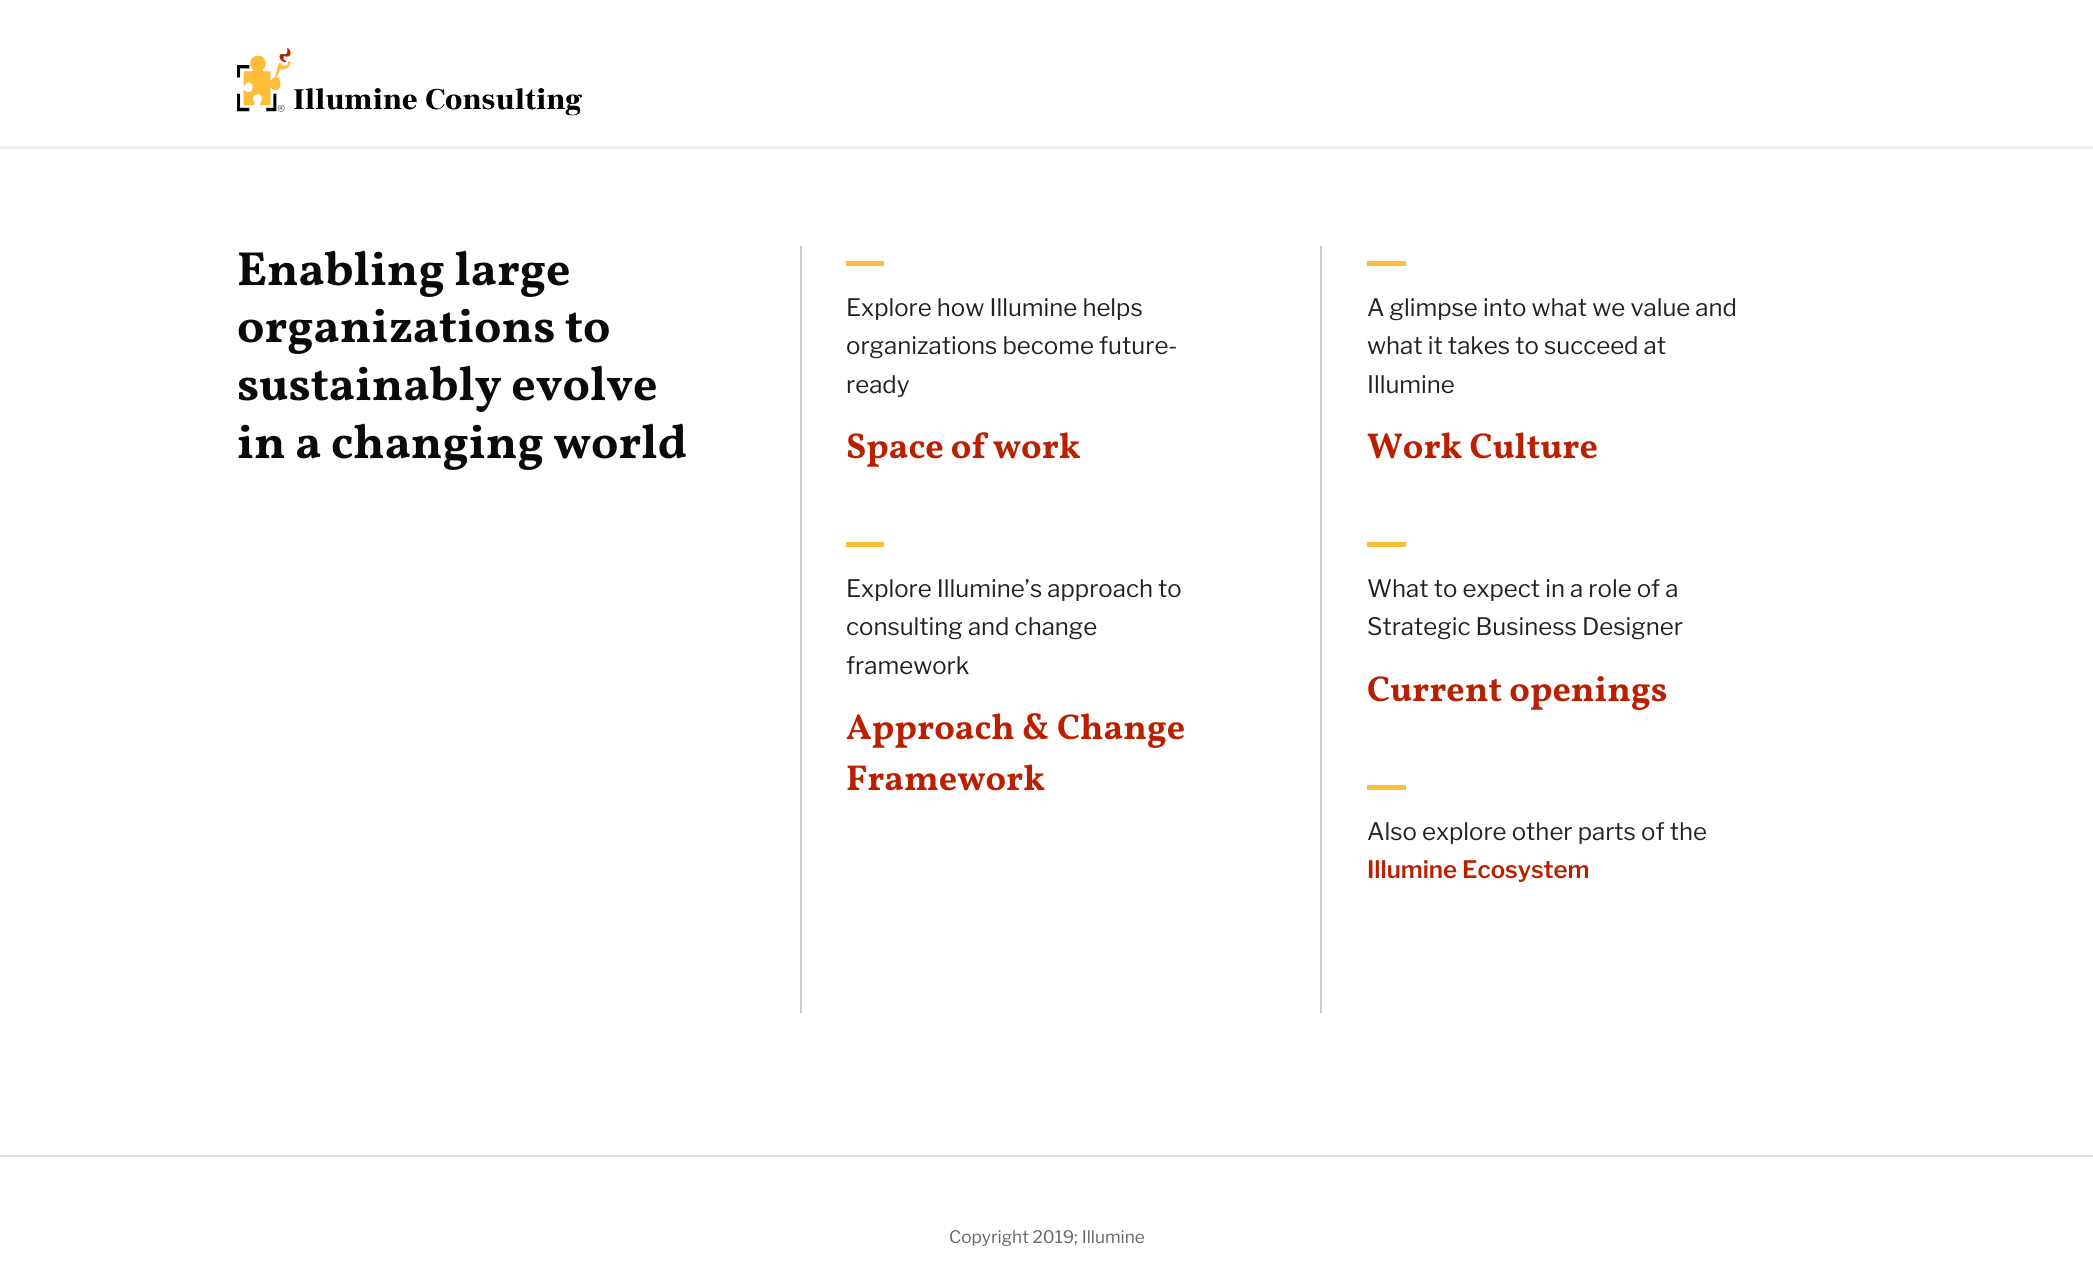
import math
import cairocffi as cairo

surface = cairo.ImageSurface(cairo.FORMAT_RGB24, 2093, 1278)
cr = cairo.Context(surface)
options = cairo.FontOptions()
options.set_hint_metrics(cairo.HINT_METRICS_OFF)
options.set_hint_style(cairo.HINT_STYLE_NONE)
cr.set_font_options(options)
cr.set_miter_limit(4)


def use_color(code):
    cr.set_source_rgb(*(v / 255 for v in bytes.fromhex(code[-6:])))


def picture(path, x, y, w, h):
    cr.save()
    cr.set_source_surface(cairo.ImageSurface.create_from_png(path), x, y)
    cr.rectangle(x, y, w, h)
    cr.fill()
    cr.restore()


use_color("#ffffff")
cr.paint()
use_color("#eeeeee")
cr.rectangle(0, 146, 2093, 3)
cr.fill()
picture("img1.png", 237, 48, 345, 68)
cr.select_font_face("Vollkorn", cairo.FONT_SLANT_NORMAL, cairo.FONT_WEIGHT_BOLD)
cr.set_font_size(48)
use_color("#0a0a0a")
cr.move_to(237, 285)
cr.show_text("Enabling large")
cr.move_to(237, 342)
cr.show_text("organizations to")
cr.move_to(237, 400)
cr.show_text("sustainably evolve")
cr.move_to(237, 458)
cr.show_text("in a changing world")
use_color("#cccccc")
cr.rectangle(800, 246, 2, 767)
cr.fill()
use_color("#ffbc36")
cr.rectangle(846, 261, 38, 5)
cr.fill()
cr.select_font_face("Libre Franklin")
cr.set_font_size(24)
use_color("#222222")
cr.move_to(846, 316)
cr.show_text("Explore how Illumine helps")
cr.move_to(846, 354)
cr.show_text("organizations become future-")
cr.move_to(846, 393)
cr.show_text("ready")
cr.select_font_face("Vollkorn", cairo.FONT_SLANT_NORMAL, cairo.FONT_WEIGHT_BOLD)
cr.set_font_size(36)
use_color("#ba1f00")
cr.move_to(846, 458)
cr.show_text("Space of work")
use_color("#ffbc36")
cr.rectangle(846, 542, 38, 5)
cr.fill()
cr.select_font_face("Libre Franklin")
cr.set_font_size(24)
use_color("#222222")
cr.move_to(846, 597)
cr.show_text("Explore Illumine’s approach to")
cr.move_to(846, 635)
cr.show_text("consulting and change")
cr.move_to(846, 674)
cr.show_text("framework")
cr.select_font_face("Vollkorn", cairo.FONT_SLANT_NORMAL, cairo.FONT_WEIGHT_BOLD)
cr.set_font_size(36)
use_color("#ba1f00")
cr.move_to(846, 739)
cr.show_text("Approach & Change")
cr.move_to(846, 790)
cr.show_text("Framework")
use_color("#cccccc")
cr.rectangle(1320, 246, 2, 767)
cr.fill()
use_color("#ffbc36")
cr.rectangle(1367, 261, 39, 5)
cr.fill()
cr.select_font_face("Libre Franklin")
cr.set_font_size(24)
use_color("#222222")
cr.move_to(1367, 316)
cr.show_text("A glimpse into what we value and")
cr.move_to(1367, 354)
cr.show_text("what it takes to succeed at")
cr.move_to(1367, 393)
cr.show_text("Illumine")
cr.select_font_face("Vollkorn", cairo.FONT_SLANT_NORMAL, cairo.FONT_WEIGHT_BOLD)
cr.set_font_size(36)
use_color("#ba1f00")
cr.move_to(1367, 458)
cr.show_text("Work Culture")
use_color("#ffbc36")
cr.rectangle(1367, 542, 39, 5)
cr.fill()
cr.select_font_face("Libre Franklin")
cr.set_font_size(24)
use_color("#222222")
cr.move_to(1367, 597)
cr.show_text("What to expect in a role of a")
cr.move_to(1367, 635)
cr.show_text("Strategic Business Designer")
cr.select_font_face("Vollkorn", cairo.FONT_SLANT_NORMAL, cairo.FONT_WEIGHT_BOLD)
cr.set_font_size(36)
use_color("#ba1f00")
cr.move_to(1367, 701)
cr.show_text("Current openings")
use_color("#ffbc36")
cr.rectangle(1367, 785, 39, 5)
cr.fill()
cr.select_font_face("Libre Franklin")
cr.set_font_size(24)
use_color("#222222")
cr.move_to(1367, 840)
cr.show_text("Also explore other parts of the")
cr.select_font_face("Libre Franklin SemiBold")
use_color("#ba1f00")
cr.move_to(1367, 878)
cr.show_text("Illumine Ecosystem")
use_color("#dddddd")
cr.rectangle(0, 1155, 2093, 2)
cr.fill()
cr.select_font_face("Libre Franklin")
cr.set_font_size(17.25)
use_color("#666666")
cr.move_to(949, 1243)
cr.show_text("Copyright 2019; Illumine")
surface.write_to_png("result.png")
